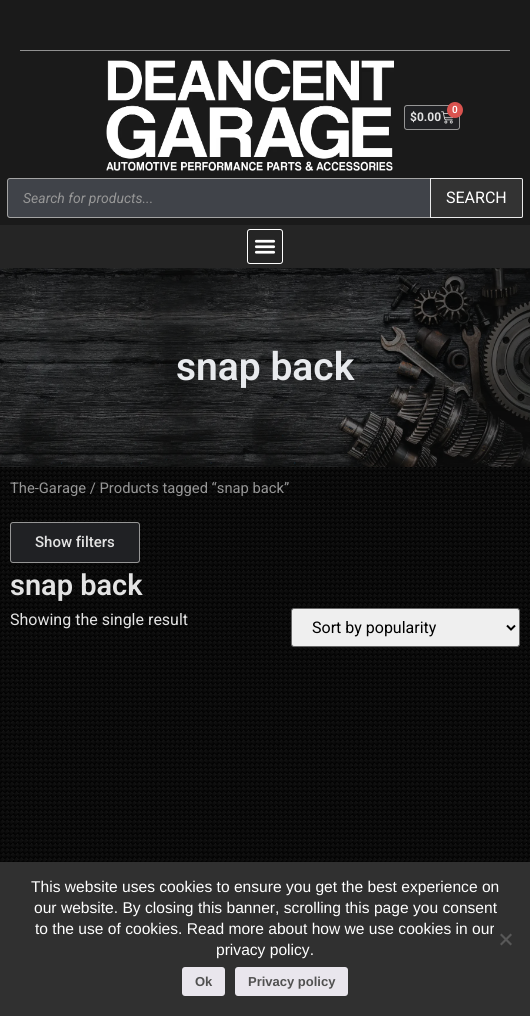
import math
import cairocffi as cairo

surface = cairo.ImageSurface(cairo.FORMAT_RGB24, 530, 1016)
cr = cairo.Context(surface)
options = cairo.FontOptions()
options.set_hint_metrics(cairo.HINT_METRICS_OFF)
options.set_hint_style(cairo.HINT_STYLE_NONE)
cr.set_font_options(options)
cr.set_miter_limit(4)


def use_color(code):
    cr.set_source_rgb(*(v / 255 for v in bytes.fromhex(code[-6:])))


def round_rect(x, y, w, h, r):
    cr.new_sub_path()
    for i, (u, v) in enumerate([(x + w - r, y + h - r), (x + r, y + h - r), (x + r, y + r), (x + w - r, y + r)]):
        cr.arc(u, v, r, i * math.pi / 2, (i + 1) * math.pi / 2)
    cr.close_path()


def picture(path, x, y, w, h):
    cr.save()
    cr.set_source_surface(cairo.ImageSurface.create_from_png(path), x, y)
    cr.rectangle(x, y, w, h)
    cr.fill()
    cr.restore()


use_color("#ffffff")
cr.paint()
picture("img1.png", 0, 467, 530, 395)
use_color("#1a1a1a")
cr.rectangle(0, 0, 530, 225)
cr.fill()
use_color("#919191")
cr.rectangle(20, 50, 490, 1)
cr.fill()
picture("img2.png", 106, 59, 288, 112)
use_color("#202124")
round_rect(404.5, 105.5, 55, 24, 2.5)
cr.fill_preserve()
use_color("#969696")
cr.set_line_width(1)
cr.stroke()
picture("img3.png", 441, 111, 13, 13)
use_color("#d9534f")
cr.arc(455, 110, 8, 0, 2 * math.pi)
cr.fill()
cr.select_font_face("Roboto SemiBold")
cr.set_font_size(10)
use_color("#ffffff")
cr.move_to(452, 113)
cr.show_text("0")
cr.select_font_face("Roboto", cairo.FONT_SLANT_NORMAL, cairo.FONT_WEIGHT_BOLD)
cr.set_font_size(12)
use_color("#e3e3e3")
cr.move_to(410, 121)
cr.show_text("$0.00")
use_color("#404349")
round_rect(7.5, 178.5, 515, 39, 2.5)
cr.fill_preserve()
use_color("#a4a4a4")
cr.stroke()
cr.select_font_face("Roboto", cairo.FONT_SLANT_ITALIC)
cr.set_font_size(14)
use_color("#969696")
cr.move_to(23, 203)
cr.show_text("Search for products...")
use_color("#333333")
cr.new_path()
cr.move_to(430.5, 178.5)
cr.line_to(521, 178.5)
cr.curve_to(522, 178.5, 522.5, 179, 522.5, 180)
cr.line_to(522.5, 216)
cr.curve_to(522.5, 217, 522, 217.5, 521, 217.5)
cr.line_to(430.5, 217.5)
cr.close_path()
cr.fill_preserve()
use_color("#eaeaea")
cr.stroke()
cr.select_font_face("Roboto")
cr.set_font_size(16)
use_color("#ffffff")
cr.move_to(446, 203)
cr.show_text("SEARCH")
use_color("#252525")
cr.rectangle(0, 225, 530, 43)
cr.fill()
round_rect(247.5, 229.5, 35, 34, 2.5)
use_color("#ffffff")
cr.stroke()
picture("img4.png", 254, 239, 22, 15)
picture("img5.png", 0, 268, 530, 199)
cr.select_font_face("Roboto SemiBold")
cr.set_font_size(39)
use_color("#e8eaed")
cr.move_to(176, 380)
cr.show_text("snap back")
cr.select_font_face("Roboto")
cr.set_font_size(14.75)
use_color("#969696")
cr.move_to(10, 493)
cr.show_text("The-Garage / Products tagged “snap back”")
use_color("#202124")
round_rect(10.5, 522.5, 129, 40, 2.5)
cr.fill_preserve()
use_color("#969696")
cr.stroke()
cr.select_font_face("Roboto Medium")
cr.set_font_size(15)
use_color("#e3e3e3")
cr.move_to(35, 547)
cr.show_text("Show filters")
cr.select_font_face("Roboto SemiBold")
cr.set_font_size(29)
cr.move_to(10, 595)
cr.show_text("snap back")
cr.select_font_face("Roboto")
cr.set_font_size(16)
cr.move_to(10, 625)
cr.show_text("Showing the single result")
use_color("#efefef")
round_rect(291.5, 608.5, 228, 38, 2.5)
cr.fill_preserve()
use_color("#666666")
cr.stroke()
cr.new_path()
cr.move_to(507, 625.5)
cr.line_to(511, 629.5)
cr.line_to(515, 625.5)
use_color("#000000")
cr.set_line_width(2)
cr.stroke()
cr.move_to(312, 633)
cr.show_text("Sort by popularity")
use_color("#303030")
cr.rectangle(0, 862, 530, 154)
cr.fill()
cr.select_font_face("Liberation Sans")
cr.set_font_size(15.6)
use_color("#ffffff")
cr.move_to(31, 892)
cr.show_text("This website uses cookies to ensure you get the best experience on")
cr.move_to(34, 913)
cr.show_text("our website. By closing this banner, scrolling this page you consent")
cr.move_to(35, 934)
cr.show_text("to the use of cookies. Read more about how we use cookies in our")
cr.move_to(216, 955)
cr.show_text("privacy policy.")
use_color("#585858")
cr.new_path()
cr.move_to(510.5, 933.5)
cr.line_to(512, 935)
cr.line_to(501.5, 945.5)
cr.line_to(500, 944)
cr.close_path()
cr.fill()
cr.new_path()
cr.move_to(500, 935)
cr.line_to(501.5, 933.5)
cr.line_to(512, 944)
cr.line_to(510.5, 945.5)
cr.close_path()
cr.fill()
use_color("#e9e6ed")
round_rect(182, 967, 43, 29, 3)
cr.fill()
cr.select_font_face("Liberation Sans", cairo.FONT_SLANT_NORMAL, cairo.FONT_WEIGHT_BOLD)
cr.set_font_size(13)
use_color("#515151")
cr.move_to(195, 986)
cr.show_text("Ok")
use_color("#e9e6ed")
round_rect(235, 967, 113, 29, 3)
cr.fill()
use_color("#515151")
cr.move_to(248, 986)
cr.show_text("Privacy policy")
surface.write_to_png("result.png")
